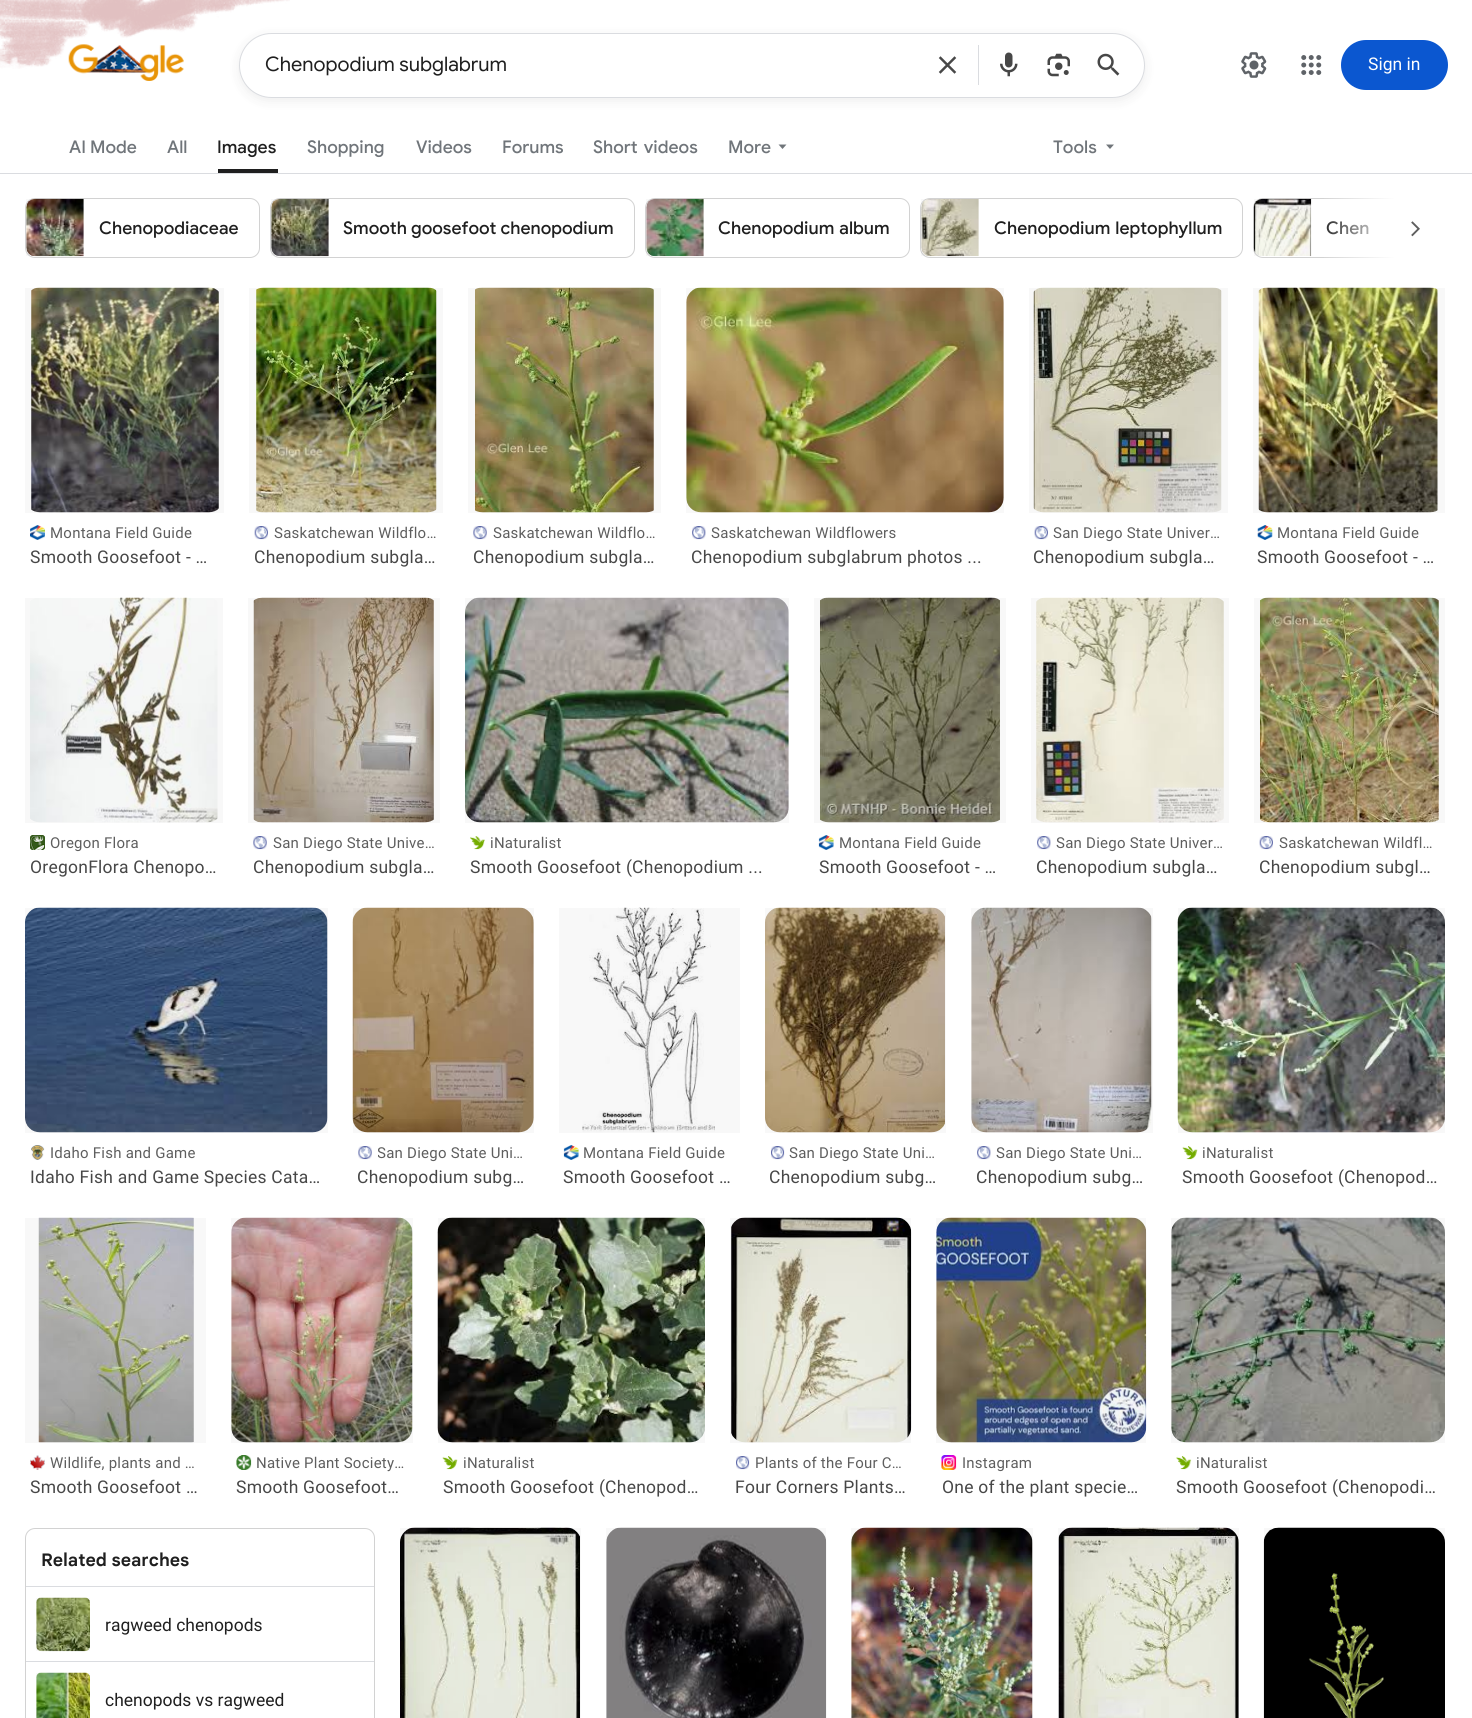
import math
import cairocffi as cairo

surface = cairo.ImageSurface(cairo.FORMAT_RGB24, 1472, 1718)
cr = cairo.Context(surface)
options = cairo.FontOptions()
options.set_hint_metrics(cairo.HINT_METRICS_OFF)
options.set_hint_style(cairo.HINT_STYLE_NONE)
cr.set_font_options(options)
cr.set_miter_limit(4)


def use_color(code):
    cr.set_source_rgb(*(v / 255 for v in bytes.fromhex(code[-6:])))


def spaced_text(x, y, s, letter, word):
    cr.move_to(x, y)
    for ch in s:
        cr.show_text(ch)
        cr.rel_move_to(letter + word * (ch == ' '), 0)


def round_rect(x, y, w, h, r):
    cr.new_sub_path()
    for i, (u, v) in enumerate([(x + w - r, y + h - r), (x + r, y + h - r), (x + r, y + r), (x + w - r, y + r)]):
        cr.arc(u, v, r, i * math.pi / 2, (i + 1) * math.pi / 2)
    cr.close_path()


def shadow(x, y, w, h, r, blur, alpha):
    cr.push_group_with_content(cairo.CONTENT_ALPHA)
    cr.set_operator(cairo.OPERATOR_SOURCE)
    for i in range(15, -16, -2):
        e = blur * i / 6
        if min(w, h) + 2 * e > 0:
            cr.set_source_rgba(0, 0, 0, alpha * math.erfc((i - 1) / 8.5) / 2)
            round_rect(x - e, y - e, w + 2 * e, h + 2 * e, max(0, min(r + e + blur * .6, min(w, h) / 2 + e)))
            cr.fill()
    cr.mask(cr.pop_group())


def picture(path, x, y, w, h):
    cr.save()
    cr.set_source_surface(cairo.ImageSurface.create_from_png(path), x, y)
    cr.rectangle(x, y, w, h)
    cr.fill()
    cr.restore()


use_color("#ffffff")
cr.paint()
picture("img1.png", 0, 0, 290, 69)
picture("img2.png", 68, 44, 116, 37)
use_color("#1f1f1f")
shadow(239, 36, 906, 65, 32.5, 6, 0.08)
use_color("#ffffff")
round_rect(239.5, 33.5, 905, 64, 32)
cr.fill_preserve()
use_color("#dadce0")
cr.set_line_width(1)
cr.stroke()
cr.select_font_face("Google Sans")
cr.set_font_size(20)
use_color("#1f1f1f")
cr.move_to(265, 71)
cr.show_text("Chenopodium subglabrum")
picture("img3.png", 938, 56, 19, 18)
use_color("#dadce0")
cr.rectangle(978, 45, 1, 40)
cr.fill()
picture("img4.png", 1000, 52, 18, 25)
picture("img5.png", 1047, 53, 23, 24)
picture("img6.png", 1097, 53, 23, 23)
picture("img7.png", 1241, 52, 26, 26)
picture("img8.png", 1301, 55, 21, 20)
use_color("#0b57d0")
round_rect(1341, 40, 107, 50, 25)
cr.fill()
cr.select_font_face("Roboto")
cr.set_font_size(17.5)
use_color("#ffffff")
cr.move_to(1368, 70)
cr.show_text("Sign in")
cr.select_font_face("Google Sans Medium")
use_color("#70757a")
cr.move_to(69, 153)
cr.show_text("AI Mode")
cr.move_to(167, 153)
cr.show_text("All")
use_color("#1f1f1f")
cr.rectangle(218, 169, 60, 4)
cr.fill()
cr.move_to(217, 153)
cr.show_text("Images")
use_color("#70757a")
cr.move_to(307, 153)
cr.show_text("Shopping")
cr.move_to(416, 153)
cr.show_text("Videos")
cr.move_to(502, 153)
cr.show_text("Forums")
spaced_text(593, 153, "Short videos", 0, 2)
cr.move_to(728, 153)
cr.show_text("More")
cr.new_path()
cr.move_to(778.5, 144.5)
cr.line_to(782.5, 149)
cr.line_to(786.5, 144.5)
cr.close_path()
cr.fill()
cr.move_to(1053, 153)
cr.show_text("Tools")
cr.new_path()
cr.move_to(1106, 144.5)
cr.line_to(1110, 149)
cr.line_to(1114, 144.5)
cr.close_path()
cr.fill()
use_color("#dadce0")
cr.rectangle(0, 173, 1472, 1)
cr.fill()
round_rect(25.5, 198.5, 234, 59, 9.5)
use_color("#d2d2d2")
cr.stroke()
use_color("#ffffff")
cr.new_path()
cr.move_to(35, 199)
cr.line_to(84, 199)
cr.line_to(84, 256)
cr.line_to(35, 256)
cr.curve_to(30, 256, 26, 252, 26, 247)
cr.line_to(26, 208)
cr.curve_to(26, 203, 30, 199, 35, 199)
cr.close_path()
cr.fill()
picture("img9.png", 26, 198, 58, 59)
cr.set_source_rgba(0, 0, 0, 0.03)
cr.rectangle(26, 199, 58, 57)
cr.fill()
use_color("#1f1f1f")
cr.move_to(99, 234)
cr.show_text("Chenopodiaceae")
round_rect(270.5, 198.5, 364, 59, 9.5)
use_color("#d2d2d2")
cr.stroke()
use_color("#ffffff")
cr.new_path()
cr.move_to(280, 199)
cr.line_to(329, 199)
cr.line_to(329, 256)
cr.line_to(280, 256)
cr.curve_to(275, 256, 271, 252, 271, 247)
cr.line_to(271, 208)
cr.curve_to(271, 203, 275, 199, 280, 199)
cr.close_path()
cr.fill()
picture("img10.png", 271, 198, 58, 59)
cr.set_source_rgba(0, 0, 0, 0.03)
cr.rectangle(271, 199, 58, 57)
cr.fill()
use_color("#1f1f1f")
cr.move_to(343, 234)
cr.show_text("Smooth goosefoot chenopodium")
round_rect(645.5, 198.5, 264, 59, 9.5)
use_color("#d2d2d2")
cr.stroke()
use_color("#ffffff")
cr.new_path()
cr.move_to(655, 199)
cr.line_to(704, 199)
cr.line_to(704, 256)
cr.line_to(655, 256)
cr.curve_to(650, 256, 646, 252, 646, 247)
cr.line_to(646, 208)
cr.curve_to(646, 203, 650, 199, 655, 199)
cr.close_path()
cr.fill()
picture("img11.png", 646, 198, 58, 59)
cr.set_source_rgba(0, 0, 0, 0.03)
cr.rectangle(646, 199, 58, 57)
cr.fill()
use_color("#1f1f1f")
spaced_text(718, 234, "Chenopodium album", 0, 1)
round_rect(920.5, 198.5, 322, 59, 9.5)
use_color("#d2d2d2")
cr.stroke()
use_color("#ffffff")
cr.new_path()
cr.move_to(930, 199)
cr.line_to(979, 199)
cr.line_to(979, 256)
cr.line_to(930, 256)
cr.curve_to(925, 256, 921, 252, 921, 247)
cr.line_to(921, 208)
cr.curve_to(921, 203, 925, 199, 930, 199)
cr.close_path()
cr.fill()
picture("img12.png", 921, 199, 58, 58)
cr.set_source_rgba(0, 0, 0, 0.03)
cr.rectangle(921, 199, 58, 57)
cr.fill()
use_color("#1f1f1f")
spaced_text(994, 234, "Chenopodium leptophyllum", 0, 1)
cr.save()
cr.rectangle(25, 198, 1400, 62)
cr.clip()
round_rect(1253.5, 198.5, 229, 59, 9.5)
use_color("#d2d2d2")
cr.stroke()
cr.restore()
picture("img13.png", 1253, 198, 59, 59)
cr.set_source_rgba(0, 0, 0, 0.03)
cr.rectangle(1254, 199, 57, 57)
cr.fill()
use_color("#1f1f1f")
spaced_text(1326, 234, "Chen", 0, 1)
gradient = cairo.LinearGradient(1320, 229, 1445, 229)
gradient.add_color_stop_rgba(0, 1, 1, 1, 0)
gradient.add_color_stop_rgba(0.6, 1, 1, 1, 1)
gradient.add_color_stop_rgba(1, 1, 1, 1, 1)
cr.set_source(gradient)
cr.rectangle(1324, 198, 101, 60)
cr.fill()
picture("img14.png", 1411, 221, 9, 16)
picture("img15.png", 31, 287, 188, 226)
cr.set_source_rgba(0, 0, 0, 0.03)
cr.rectangle(25, 288, 199, 225)
cr.fill()
picture("img16.png", 30, 525, 15, 15)
cr.select_font_face("Roboto")
cr.set_font_size(15)
use_color("#5e5e5e")
spaced_text(50, 538, "Montana Field Guide", 0.25, 0)
cr.set_font_size(17.5)
use_color("#474747")
spaced_text(30, 563, "Smooth Goosefoot - …", 0.25, 0)
picture("img17.png", 256, 287, 181, 226)
cr.set_source_rgba(0, 0, 0, 0.03)
cr.rectangle(249, 288, 194, 225)
cr.fill()
picture("img18.png", 254, 526, 14, 14)
cr.set_font_size(15)
use_color("#5e5e5e")
spaced_text(274, 538, "Saskatchewan Wildflo…", 0.25, 0)
cr.set_font_size(17.5)
use_color("#474747")
spaced_text(254, 563, "Chenopodium subgla…", 0.25, 0)
picture("img19.png", 475, 287, 179, 226)
cr.set_source_rgba(0, 0, 0, 0.03)
cr.rectangle(468, 288, 193, 225)
cr.fill()
picture("img20.png", 473, 526, 14, 14)
cr.set_font_size(15)
use_color("#5e5e5e")
spaced_text(493, 538, "Saskatchewan Wildflo…", 0.25, 0)
cr.set_font_size(17.5)
use_color("#474747")
spaced_text(473, 563, "Chenopodium subgla…", 0.25, 0)
picture("img21.png", 686, 287, 318, 226)
cr.set_source_rgba(0, 0, 0, 0.03)
cr.rectangle(686, 288, 318, 225)
cr.fill()
picture("img22.png", 692, 526, 14, 14)
cr.set_font_size(15)
use_color("#5e5e5e")
spaced_text(711, 538, "Saskatchewan Wildflowers", 0.25, 0)
cr.set_font_size(17.5)
use_color("#474747")
spaced_text(691, 563, "Chenopodium subglabrum photos ...", 0.25, 0)
picture("img23.png", 1033, 287, 189, 226)
cr.set_source_rgba(0, 0, 0, 0.03)
cr.rectangle(1029, 288, 199, 225)
cr.fill()
picture("img24.png", 1034, 526, 14, 14)
cr.set_font_size(15)
use_color("#5e5e5e")
spaced_text(1053, 538, "San Diego State Univer…", 0.25, 0)
cr.set_font_size(17.5)
use_color("#474747")
spaced_text(1033, 563, "Chenopodium subgla…", 0.25, 0)
picture("img25.png", 1258, 287, 180, 226)
cr.set_source_rgba(0, 0, 0, 0.03)
cr.rectangle(1253, 288, 192, 225)
cr.fill()
picture("img26.png", 1257, 525, 16, 15)
cr.set_font_size(15)
use_color("#5e5e5e")
spaced_text(1277, 538, "Montana Field Guide", 0.25, 0)
cr.set_font_size(17.5)
use_color("#474747")
spaced_text(1257, 563, "Smooth Goosefoot - …", 0.25, 0)
picture("img27.png", 30, 597, 188, 226)
cr.set_source_rgba(0, 0, 0, 0.03)
cr.rectangle(25, 598, 198, 225)
cr.fill()
picture("img28.png", 30, 835, 15, 15)
cr.set_font_size(15)
use_color("#5e5e5e")
spaced_text(50, 848, "Oregon Flora", 0.25, 0)
cr.set_font_size(17.5)
use_color("#474747")
spaced_text(30, 873, "OregonFlora Chenopo…", 0.25, 0)
picture("img29.png", 253, 597, 181, 226)
cr.set_source_rgba(0, 0, 0, 0.03)
cr.rectangle(248, 598, 192, 225)
cr.fill()
picture("img20.png", 253, 836, 14, 14)
cr.set_font_size(15)
use_color("#5e5e5e")
spaced_text(273, 848, "San Diego State Unive…", 0.25, 0)
cr.set_font_size(17.5)
use_color("#474747")
spaced_text(253, 873, "Chenopodium subgla…", 0.25, 0)
picture("img30.png", 465, 597, 324, 226)
cr.set_source_rgba(0, 0, 0, 0.03)
cr.rectangle(465, 598, 324, 225)
cr.fill()
picture("img31.png", 470, 836, 15, 14)
cr.set_font_size(15)
use_color("#5e5e5e")
spaced_text(490, 848, "iNaturalist", 0.25, 0)
cr.set_font_size(17.5)
use_color("#474747")
spaced_text(470, 873, "Smooth Goosefoot (Chenopodium ...", 0.25, 0)
picture("img32.png", 820, 597, 180, 226)
cr.set_source_rgba(0, 0, 0, 0.03)
cr.rectangle(814, 598, 192, 225)
cr.fill()
picture("img33.png", 818, 835, 16, 15)
cr.set_font_size(15)
use_color("#5e5e5e")
spaced_text(839, 848, "Montana Field Guide", 0.25, 0)
cr.set_font_size(17.5)
use_color("#474747")
spaced_text(819, 873, "Smooth Goosefoot - …", 0.25, 0)
picture("img34.png", 1036, 597, 188, 226)
cr.set_source_rgba(0, 0, 0, 0.03)
cr.rectangle(1031, 598, 198, 225)
cr.fill()
picture("img35.png", 1037, 836, 14, 14)
cr.set_font_size(15)
use_color("#5e5e5e")
spaced_text(1056, 848, "San Diego State Univer…", 0.25, 0)
cr.set_font_size(17.5)
use_color("#474747")
spaced_text(1036, 873, "Chenopodium subgla…", 0.25, 0)
picture("img36.png", 1260, 597, 179, 226)
cr.set_source_rgba(0, 0, 0, 0.03)
cr.rectangle(1254, 598, 191, 225)
cr.fill()
picture("img24.png", 1259, 836, 14, 14)
cr.set_font_size(15)
use_color("#5e5e5e")
spaced_text(1279, 848, "Saskatchewan Wildfl…", 0.25, 0)
cr.set_font_size(17.5)
use_color("#474747")
spaced_text(1259, 873, "Chenopodium subgl…", 0.25, 0)
picture("img37.png", 25, 907, 303, 226)
cr.set_source_rgba(0, 0, 0, 0.03)
cr.rectangle(25, 908, 303, 225)
cr.fill()
picture("img38.png", 31, 1145, 14, 15)
cr.set_font_size(15)
use_color("#5e5e5e")
spaced_text(50, 1158, "Idaho Fish and Game", 0.25, 0)
cr.set_font_size(17.5)
use_color("#474747")
spaced_text(30, 1183, "Idaho Fish and Game Species Cata…", 0.25, 0)
picture("img39.png", 352, 907, 182, 226)
cr.set_source_rgba(0, 0, 0, 0.03)
cr.rectangle(353, 908, 181, 225)
cr.fill()
picture("img20.png", 358, 1146, 14, 14)
cr.save()
cr.rectangle(378, 1143, 151, 20)
cr.clip()
cr.set_font_size(15)
use_color("#5e5e5e")
spaced_text(377, 1158, "San Diego State Uni…", 0.25, 0)
cr.restore()
use_color("#474747")
spaced_text(357, 1183, "Chenopodium subg…", 0.25, 0)
picture("img40.png", 582, 907, 133, 226)
cr.set_source_rgba(0, 0, 0, 0.03)
cr.rectangle(559, 908, 181, 225)
cr.fill()
picture("img33.png", 563, 1145, 16, 15)
cr.set_font_size(15)
use_color("#5e5e5e")
spaced_text(583, 1158, "Montana Field Guide", 0.25, 0)
cr.set_font_size(17.5)
use_color("#474747")
spaced_text(563, 1183, "Smooth Goosefoot …", 0.25, 0)
picture("img41.png", 765, 907, 180, 226)
cr.set_source_rgba(0, 0, 0, 0.03)
cr.rectangle(765, 908, 181, 225)
cr.fill()
picture("img42.png", 771, 1146, 14, 14)
cr.set_font_size(15)
use_color("#5e5e5e")
spaced_text(789, 1158, "San Diego State Uni…", 0.25, 0)
cr.set_font_size(17.5)
use_color("#474747")
spaced_text(769, 1183, "Chenopodium subg…", 0.25, 0)
picture("img43.png", 971, 907, 181, 226)
cr.set_source_rgba(0, 0, 0, 0.03)
cr.rectangle(971, 908, 182, 225)
cr.fill()
picture("img35.png", 977, 1146, 14, 14)
cr.set_font_size(15)
use_color("#5e5e5e")
spaced_text(996, 1158, "San Diego State Uni…", 0.25, 0)
cr.set_font_size(17.5)
use_color("#474747")
spaced_text(976, 1183, "Chenopodium subg…", 0.25, 0)
picture("img44.png", 1177, 907, 268, 226)
cr.set_source_rgba(0, 0, 0, 0.03)
cr.rectangle(1178, 908, 267, 225)
cr.fill()
picture("img45.png", 1182, 1146, 16, 14)
cr.set_font_size(15)
use_color("#5e5e5e")
spaced_text(1202, 1158, "iNaturalist", 0.25, 0)
cr.set_font_size(17.5)
use_color("#474747")
spaced_text(1182, 1183, "Smooth Goosefoot (Chenopod…", 0.25, 0)
picture("img46.png", 38, 1217, 156, 226)
cr.set_source_rgba(0, 0, 0, 0.03)
cr.rectangle(25, 1218, 181, 225)
cr.fill()
picture("img47.png", 30, 1455, 15, 15)
cr.set_font_size(15)
use_color("#5e5e5e")
spaced_text(50, 1468, "Wildlife, plants and …", 0.25, 0)
cr.set_font_size(17.5)
use_color("#474747")
spaced_text(30, 1493, "Smooth Goosefoot …", 0.25, 0)
picture("img48.png", 231, 1217, 182, 226)
cr.set_source_rgba(0, 0, 0, 0.03)
cr.rectangle(231, 1218, 182, 225)
cr.fill()
picture("img49.png", 236, 1455, 16, 15)
cr.set_font_size(15)
use_color("#5e5e5e")
spaced_text(256, 1468, "Native Plant Society…", 0.25, 0)
cr.set_font_size(17.5)
use_color("#474747")
spaced_text(236, 1493, "Smooth Goosefoot…", 0.25, 0)
picture("img50.png", 437, 1217, 268, 226)
cr.set_source_rgba(0, 0, 0, 0.03)
cr.rectangle(438, 1218, 267, 225)
cr.fill()
picture("img45.png", 442, 1456, 16, 14)
cr.set_font_size(15)
use_color("#5e5e5e")
spaced_text(463, 1468, "iNaturalist", 0.25, 0)
cr.set_font_size(17.5)
use_color("#474747")
spaced_text(443, 1493, "Smooth Goosefoot (Chenopod…", 0.25, 0)
picture("img51.png", 731, 1217, 181, 226)
cr.set_source_rgba(0, 0, 0, 0.03)
cr.rectangle(730, 1218, 181, 225)
cr.fill()
picture("img52.png", 736, 1456, 14, 14)
cr.set_font_size(15)
use_color("#5e5e5e")
spaced_text(755, 1468, "Plants of the Four C…", 0.25, 0)
cr.set_font_size(17.5)
use_color("#474747")
spaced_text(735, 1493, "Four Corners Plants…", 0.25, 0)
picture("img53.png", 936, 1217, 211, 226)
cr.set_source_rgba(0, 0, 0, 0.03)
cr.rectangle(936, 1218, 210, 225)
cr.fill()
picture("img54.png", 941, 1455, 16, 15)
cr.set_font_size(15)
use_color("#5e5e5e")
spaced_text(962, 1468, "Instagram", 0.25, 0)
cr.set_font_size(17.5)
use_color("#474747")
spaced_text(942, 1493, "One of the plant specie…", 0.25, 0)
picture("img55.png", 1171, 1217, 274, 226)
cr.set_source_rgba(0, 0, 0, 0.03)
cr.rectangle(1171, 1218, 274, 225)
cr.fill()
picture("img56.png", 1176, 1456, 16, 14)
cr.set_font_size(15)
use_color("#5e5e5e")
spaced_text(1196, 1468, "iNaturalist", 0.25, 0)
cr.set_font_size(17.5)
use_color("#474747")
spaced_text(1176, 1493, "Smooth Goosefoot (Chenopodi…", 0.25, 0)
round_rect(25.5, 1528.5, 349, 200, 9.5)
use_color("#d2d2d2")
cr.stroke()
cr.select_font_face("Google Sans", cairo.FONT_SLANT_NORMAL, cairo.FONT_WEIGHT_BOLD)
use_color("#1f1f1f")
cr.move_to(41, 1566)
cr.show_text("Related searches")
use_color("#dadce0")
cr.rectangle(26, 1586, 348, 1)
cr.fill()
picture("img57.png", 36, 1597, 54, 55)
cr.set_source_rgba(0, 0, 0, 0.03)
cr.rectangle(36, 1598, 54, 53)
cr.fill()
cr.select_font_face("Roboto")
use_color("#1f1f1f")
cr.move_to(105, 1631)
cr.show_text("ragweed chenopods")
use_color("#dadce0")
cr.rectangle(26, 1661, 348, 1)
cr.fill()
picture("img58.png", 36, 1672, 54, 46)
cr.set_source_rgba(0, 0, 0, 0.03)
cr.rectangle(36, 1673, 54, 45)
cr.fill()
use_color("#1f1f1f")
cr.move_to(105, 1706)
cr.show_text("chenopods vs ragweed")
picture("img59.png", 400, 1527, 180, 191)
cr.set_source_rgba(0, 0, 0, 0.03)
cr.rectangle(400, 1528, 181, 190)
cr.fill()
picture("img60.png", 606, 1527, 221, 191)
cr.rectangle(606, 1528, 220, 190)
cr.fill()
picture("img61.png", 851, 1527, 182, 191)
cr.rectangle(851, 1528, 182, 190)
cr.fill()
picture("img62.png", 1058, 1527, 181, 191)
cr.rectangle(1058, 1528, 181, 190)
cr.fill()
picture("img63.png", 1263, 1527, 182, 191)
cr.rectangle(1264, 1528, 181, 190)
cr.fill()
surface.write_to_png("result.png")
